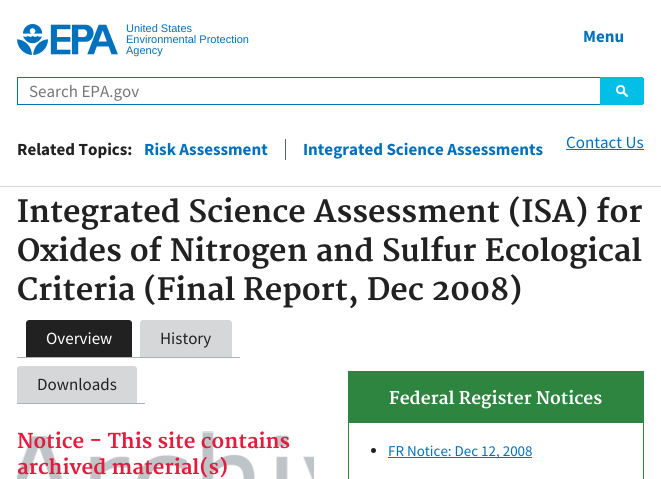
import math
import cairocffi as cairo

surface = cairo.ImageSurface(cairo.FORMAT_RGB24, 661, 479)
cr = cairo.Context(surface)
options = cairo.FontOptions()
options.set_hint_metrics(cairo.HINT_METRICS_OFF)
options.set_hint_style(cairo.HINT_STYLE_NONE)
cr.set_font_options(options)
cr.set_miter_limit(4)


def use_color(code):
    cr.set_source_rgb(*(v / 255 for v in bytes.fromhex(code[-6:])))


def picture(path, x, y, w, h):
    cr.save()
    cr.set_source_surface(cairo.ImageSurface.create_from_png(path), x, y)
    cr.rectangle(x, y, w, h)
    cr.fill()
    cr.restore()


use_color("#ffffff")
cr.paint()
picture("img1.png", 17, 24, 101, 31)
cr.select_font_face("Liberation Sans")
cr.set_font_size(11)
use_color("#0071bc")
cr.move_to(126, 32)
cr.show_text("United States")
cr.move_to(126, 43)
cr.show_text("Environmental Protection")
cr.move_to(126, 54)
cr.show_text("Agency")
cr.new_path()
cr.move_to(17.5, 77.5)
cr.line_to(641, 77.5)
cr.curve_to(642.5, 77.5, 643.5, 78.5, 643.5, 80)
cr.line_to(643.5, 102)
cr.curve_to(643.5, 103.5, 642.5, 104.5, 641, 104.5)
cr.line_to(17.5, 104.5)
cr.close_path()
cr.set_line_width(1)
cr.stroke()
cr.select_font_face("Source Sans Pro")
cr.set_font_size(17)
use_color("#757575")
cr.move_to(29, 97)
cr.show_text("Search EPA.gov")
use_color("#02bfe7")
cr.new_path()
cr.move_to(600, 77)
cr.line_to(641, 77)
cr.curve_to(642.5, 77, 644, 78.5, 644, 80)
cr.line_to(644, 102)
cr.curve_to(644, 103.5, 642.5, 105, 641, 105)
cr.line_to(600, 105)
cr.close_path()
cr.fill()
picture("img2.png", 616, 85, 12, 12)
cr.select_font_face("Source Sans Pro", cairo.FONT_SLANT_NORMAL, cairo.FONT_WEIGHT_BOLD)
use_color("#0071bc")
cr.move_to(583, 42)
cr.show_text("Menu")
use_color("#d6d7d9")
cr.rectangle(0, 186, 661, 1)
cr.fill()
use_color("#212121")
cr.move_to(17, 155)
cr.show_text("Related Topics:")
use_color("#5b616b")
cr.rectangle(285, 139, 1, 21)
cr.fill()
use_color("#0071bc")
cr.move_to(144, 155)
cr.show_text("Risk Assessment")
cr.move_to(303, 155)
cr.show_text("Integrated Science Assessments")
cr.select_font_face("Source Sans Pro")
cr.move_to(566, 148)
cr.show_text("Contact Us")
cr.rectangle(566, 149, 78, 1)
cr.fill()
cr.select_font_face("Merriweather", cairo.FONT_SLANT_NORMAL, cairo.FONT_WEIGHT_BOLD)
cr.set_font_size(30)
use_color("#212121")
cr.move_to(17, 222)
cr.show_text("Integrated Science Assessment (ISA) for")
cr.move_to(17, 261)
cr.show_text("Oxides of Nitrogen and Sulfur Ecological")
cr.move_to(17, 300)
cr.show_text("Criteria (Final Report, Dec 2008)")
use_color("#aeb0b5")
cr.rectangle(17, 357, 223, 1)
cr.fill()
use_color("#212121")
cr.new_path()
cr.move_to(29, 320)
cr.line_to(129, 320)
cr.curve_to(130.5, 320, 132, 321.5, 132, 323)
cr.line_to(132, 357)
cr.line_to(26, 357)
cr.line_to(26, 323)
cr.curve_to(26, 321.5, 27.5, 320, 29, 320)
cr.close_path()
cr.fill()
cr.select_font_face("Source Sans Pro")
cr.set_font_size(17)
use_color("#ffffff")
cr.move_to(46, 344)
cr.show_text("Overview")
use_color("#d6d7d9")
cr.new_path()
cr.move_to(143, 320)
cr.line_to(229, 320)
cr.curve_to(230.5, 320, 232, 321.5, 232, 323)
cr.line_to(232, 357)
cr.line_to(140, 357)
cr.line_to(140, 323)
cr.curve_to(140, 321.5, 141.5, 320, 143, 320)
cr.close_path()
cr.fill()
use_color("#212121")
cr.move_to(160, 344)
cr.show_text("History")
use_color("#aeb0b5")
cr.rectangle(17, 403, 128, 1)
cr.fill()
use_color("#d6d7d9")
cr.new_path()
cr.move_to(20, 366)
cr.line_to(134, 366)
cr.curve_to(135.5, 366, 137, 367.5, 137, 369)
cr.line_to(137, 403)
cr.line_to(17, 403)
cr.line_to(17, 369)
cr.curve_to(17, 367.5, 18.5, 366, 20, 366)
cr.close_path()
cr.fill()
use_color("#212121")
cr.move_to(37, 390)
cr.show_text("Downloads")
picture("img3.png", 17, 431, 297, 48)
cr.select_font_face("Merriweather", cairo.FONT_SLANT_NORMAL, cairo.FONT_WEIGHT_BOLD)
cr.set_font_size(20)
use_color("#e31c3d")
cr.move_to(17, 448)
cr.show_text("Notice - This site contains")
cr.move_to(17, 474)
cr.show_text("archived material(s)")
use_color("#2e8540")
cr.rectangle(348, 371, 296, 52)
cr.fill()
cr.set_font_size(17)
use_color("#ffffff")
cr.move_to(389, 404)
cr.show_text("Federal Register Notices")
use_color("#2e8540")
cr.rectangle(643, 423, 1, 56)
cr.fill()
cr.rectangle(348, 423, 1, 56)
cr.fill()
use_color("#212121")
cr.arc(373.5, 450.5, 2.5, 0, 2 * math.pi)
cr.fill()
use_color("#0071bc")
cr.rectangle(388, 457, 144, 1)
cr.fill()
cr.select_font_face("Source Sans Pro")
cr.set_font_size(15)
cr.move_to(388, 456)
cr.show_text("FR Notice: Dec 12, 2008")
surface.write_to_png("result.png")
